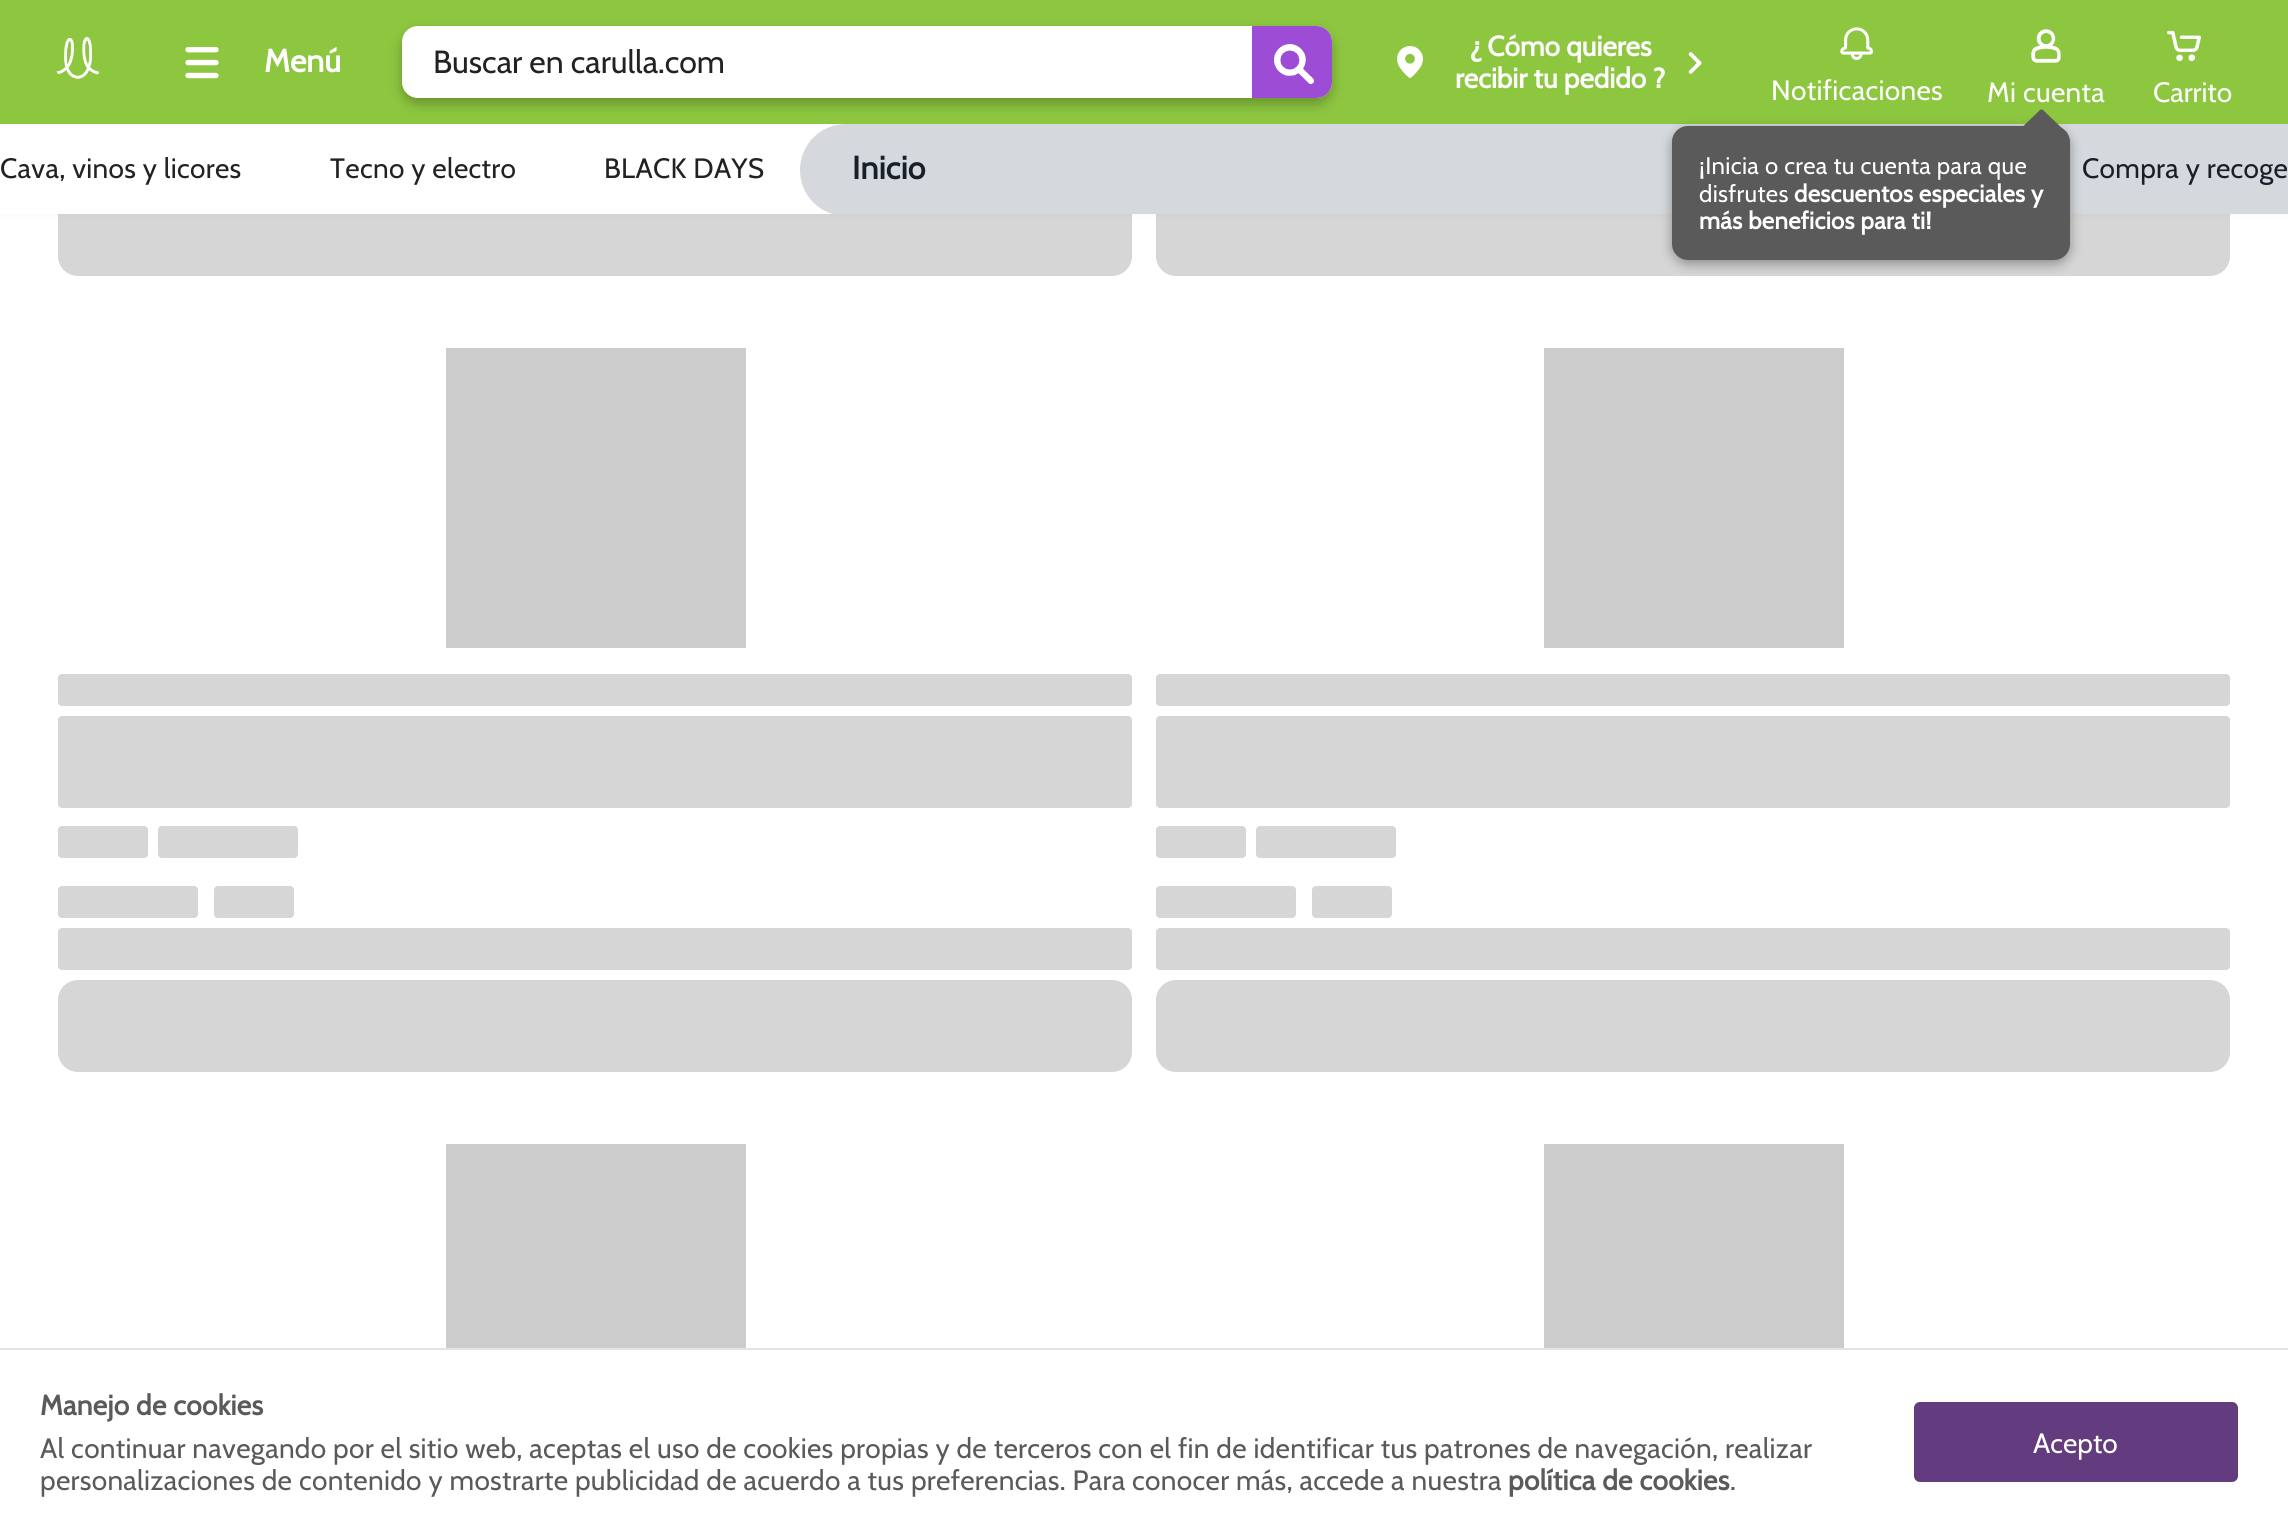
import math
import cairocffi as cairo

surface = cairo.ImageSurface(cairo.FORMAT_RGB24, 2288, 1535)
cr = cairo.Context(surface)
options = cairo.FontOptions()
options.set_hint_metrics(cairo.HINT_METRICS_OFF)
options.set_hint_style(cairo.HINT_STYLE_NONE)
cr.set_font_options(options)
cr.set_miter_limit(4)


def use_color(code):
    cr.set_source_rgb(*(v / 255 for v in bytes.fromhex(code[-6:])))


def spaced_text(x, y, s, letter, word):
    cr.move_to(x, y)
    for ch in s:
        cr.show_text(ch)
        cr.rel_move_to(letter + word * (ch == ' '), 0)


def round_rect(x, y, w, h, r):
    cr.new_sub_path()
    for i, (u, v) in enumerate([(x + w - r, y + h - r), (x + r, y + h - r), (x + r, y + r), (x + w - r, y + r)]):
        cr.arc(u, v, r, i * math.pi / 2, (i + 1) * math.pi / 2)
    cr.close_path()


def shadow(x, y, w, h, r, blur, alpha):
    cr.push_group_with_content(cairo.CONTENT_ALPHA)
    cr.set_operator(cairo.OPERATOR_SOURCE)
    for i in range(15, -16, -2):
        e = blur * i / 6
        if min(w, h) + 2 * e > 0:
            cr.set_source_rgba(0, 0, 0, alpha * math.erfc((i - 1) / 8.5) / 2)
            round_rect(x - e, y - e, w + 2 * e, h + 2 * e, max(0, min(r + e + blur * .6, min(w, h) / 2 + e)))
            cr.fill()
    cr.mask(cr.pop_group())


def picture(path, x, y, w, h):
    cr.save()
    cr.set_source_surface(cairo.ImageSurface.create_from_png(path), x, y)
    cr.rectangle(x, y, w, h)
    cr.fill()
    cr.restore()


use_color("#ffffff")
cr.paint()
use_color("#d6d6d6")
round_rect(58, 184, 1074, 92, 20)
cr.fill()
round_rect(1156, 184, 1074, 92, 20)
cr.fill()
use_color("#000000")
shadow(0, 0, 2288, 214, 0, 3, 0.05)
use_color("#8dc63f")
cr.rectangle(0, 0, 2288, 124)
cr.fill()
picture("img1.png", 56, 37, 44, 42)
picture("img2.png", 185, 47, 34, 32)
cr.select_font_face("Cabin", cairo.FONT_SLANT_NORMAL, cairo.FONT_WEIGHT_BOLD)
cr.set_font_size(32)
use_color("#ffffff")
cr.move_to(264, 72)
cr.show_text("Menú")
round_rect(402, 26, 930, 72, 16)
cr.fill()
cr.save()
cr.set_fill_rule(cairo.FILL_RULE_EVEN_ODD)
cr.new_path()
cr.move_to(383, 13)
cr.line_to(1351, 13)
cr.line_to(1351, 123)
cr.line_to(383, 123)
cr.close_path()
cr.move_to(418, 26)
cr.line_to(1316, 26)
cr.curve_to(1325, 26, 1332, 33, 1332, 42)
cr.line_to(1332, 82)
cr.curve_to(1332, 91, 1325, 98, 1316, 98)
cr.line_to(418, 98)
cr.curve_to(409, 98, 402, 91, 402, 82)
cr.line_to(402, 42)
cr.curve_to(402, 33, 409, 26, 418, 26)
cr.close_path()
cr.clip()
use_color("#000000")
shadow(402, 32, 930, 72, 16, 6, 0.26)
cr.restore()
cr.select_font_face("Cabin")
use_color("#222222")
cr.move_to(433, 73)
cr.show_text("Buscar en carulla.com")
use_color("#9c4cd5")
cr.new_path()
cr.move_to(1252, 26)
cr.line_to(1316, 26)
cr.curve_to(1325, 26, 1332, 33, 1332, 42)
cr.line_to(1332, 82)
cr.curve_to(1332, 91, 1325, 98, 1316, 98)
cr.line_to(1252, 98)
cr.close_path()
cr.fill()
picture("img3.png", 1274, 44, 40, 40)
picture("img4.png", 1397, 46, 26, 32)
cr.select_font_face("Cabin", cairo.FONT_SLANT_NORMAL, cairo.FONT_WEIGHT_BOLD)
cr.set_font_size(28)
use_color("#ffffff")
cr.move_to(1470, 56)
cr.show_text("¿ Cómo quieres")
cr.move_to(1455, 88)
cr.show_text("recibir tu pedido ?")
picture("img5.png", 1688, 52, 14, 22)
picture("img6.png", 1840, 27, 33, 33)
cr.select_font_face("Cabin")
spaced_text(1771, 100, "Notificaciones", 0.32, 0)
picture("img7.png", 2031, 29, 30, 34)
spaced_text(1987, 102, "Mi cuenta", 0.32, 0)
cr.rectangle(0, 124, 846, 90)
cr.fill()
cr.save()
cr.rectangle(0, 124, 2288, 90)
cr.clip()
use_color("#d5d8dc")
cr.new_path()
cr.move_to(846, 124)
cr.line_to(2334, 124)
cr.line_to(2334, 216)
cr.line_to(846, 216)
cr.curve_to(820.5, 216, 800, 195.5, 800, 170)
cr.curve_to(800, 144.5, 820.5, 124, 846, 124)
cr.close_path()
cr.fill()
cr.restore()
use_color("#000000")
shadow(1672, 130, 398, 134, 16, 6, 0.34)
use_color("#5a5a5a")
round_rect(1672, 126, 398, 134, 16)
cr.fill()
cr.set_font_size(24)
use_color("#ffffff")
spaced_text(1699, 174, "¡Inicia o crea tu cuenta para que", 0.32, 0)
use_color("#5a5a5a")
cr.new_path()
cr.move_to(2044, 111)
cr.line_to(2067, 133)
cr.curve_to(2068, 135, 2068, 137, 2067, 139)
cr.line_to(2044, 162)
cr.curve_to(2043, 163, 2040, 163, 2039, 162)
cr.line_to(2016, 139)
cr.curve_to(2014, 137, 2014, 135, 2016, 133)
cr.line_to(2039, 111)
cr.curve_to(2040, 109, 2043, 109, 2044, 111)
cr.close_path()
cr.fill()
use_color("#ffffff")
spaced_text(1699, 202, "disfrutes", 0.32, 0)
cr.select_font_face("Cabin", cairo.FONT_SLANT_NORMAL, cairo.FONT_WEIGHT_BOLD)
spaced_text(1794, 202, "descuentos especiales y", 0.32, 0)
spaced_text(1699, 229, "más beneficios para ti!", 0.32, 0)
picture("img8.png", 2167, 30, 34, 32)
cr.select_font_face("Cabin")
cr.set_font_size(28)
cr.move_to(2153, 102)
cr.show_text("Carrito")
use_color("#222222")
spaced_text(0, 178, "Cava, vinos y licores", 0.32, 0)
spaced_text(330, 178, "Tecno y electro", 0.32, 0)
spaced_text(604, 178, "BLACK DAYS", 0.32, 0)
cr.select_font_face("Cabin", cairo.FONT_SLANT_NORMAL, cairo.FONT_WEIGHT_BOLD)
cr.set_font_size(32)
use_color("#17202a")
spaced_text(852, 179, "Inicio", 0.32, 0)
cr.select_font_face("Cabin")
cr.set_font_size(28)
spaced_text(2082, 178, "Compra y recoge", 0.32, 0)
use_color("#cccccc")
cr.rectangle(446, 348, 300, 300)
cr.fill()
use_color("#d6d6d6")
round_rect(58, 674, 1074, 32, 4)
cr.fill()
round_rect(58, 716, 1074, 92, 4)
cr.fill()
round_rect(58, 826, 90, 32, 4)
cr.fill()
round_rect(158, 826, 140, 32, 4)
cr.fill()
round_rect(58, 886, 140, 32, 4)
cr.fill()
round_rect(214, 886, 80, 32, 4)
cr.fill()
round_rect(58, 928, 1074, 42, 4)
cr.fill()
round_rect(58, 980, 1074, 92, 20)
cr.fill()
use_color("#cccccc")
cr.rectangle(1544, 348, 300, 300)
cr.fill()
use_color("#d6d6d6")
round_rect(1156, 674, 1074, 32, 4)
cr.fill()
round_rect(1156, 716, 1074, 92, 4)
cr.fill()
round_rect(1156, 826, 90, 32, 4)
cr.fill()
round_rect(1256, 826, 140, 32, 4)
cr.fill()
round_rect(1156, 886, 140, 32, 4)
cr.fill()
round_rect(1312, 886, 80, 32, 4)
cr.fill()
round_rect(1156, 928, 1074, 42, 4)
cr.fill()
round_rect(1156, 980, 1074, 92, 20)
cr.fill()
use_color("#cccccc")
cr.rectangle(446, 1144, 300, 204)
cr.fill()
cr.rectangle(1544, 1144, 300, 204)
cr.fill()
use_color("#e3e3e3")
cr.rectangle(0, 1348, 2288, 2)
cr.fill()
cr.select_font_face("Cabin", cairo.FONT_SLANT_NORMAL, cairo.FONT_WEIGHT_BOLD)
use_color("#5a5a5a")
spaced_text(40, 1415, "Manejo de cookies", 0.32, 0)
cr.select_font_face("Cabin")
spaced_text(40, 1458, "Al continuar navegando por el sitio web, aceptas el uso de cookies propias y de terceros con el fin de identificar tus patrones de navegación, realizar", 0.32, 0)
spaced_text(40, 1490, "personalizaciones de contenido y mostrarte publicidad de acuerdo a tus preferencias. Para conocer más, accede a nuestra", 0.32, 0)
cr.select_font_face("Cabin", cairo.FONT_SLANT_NORMAL, cairo.FONT_WEIGHT_BOLD)
spaced_text(1508, 1490, "política de cookies", 0.32, 0)
cr.select_font_face("Cabin")
spaced_text(1730, 1490, ".", 0.32, 0)
use_color("#633b7f")
round_rect(1914, 1402, 324, 80, 6)
cr.fill()
use_color("#ffffff")
cr.move_to(2033, 1453)
cr.show_text("Acepto")
surface.write_to_png("result.png")
